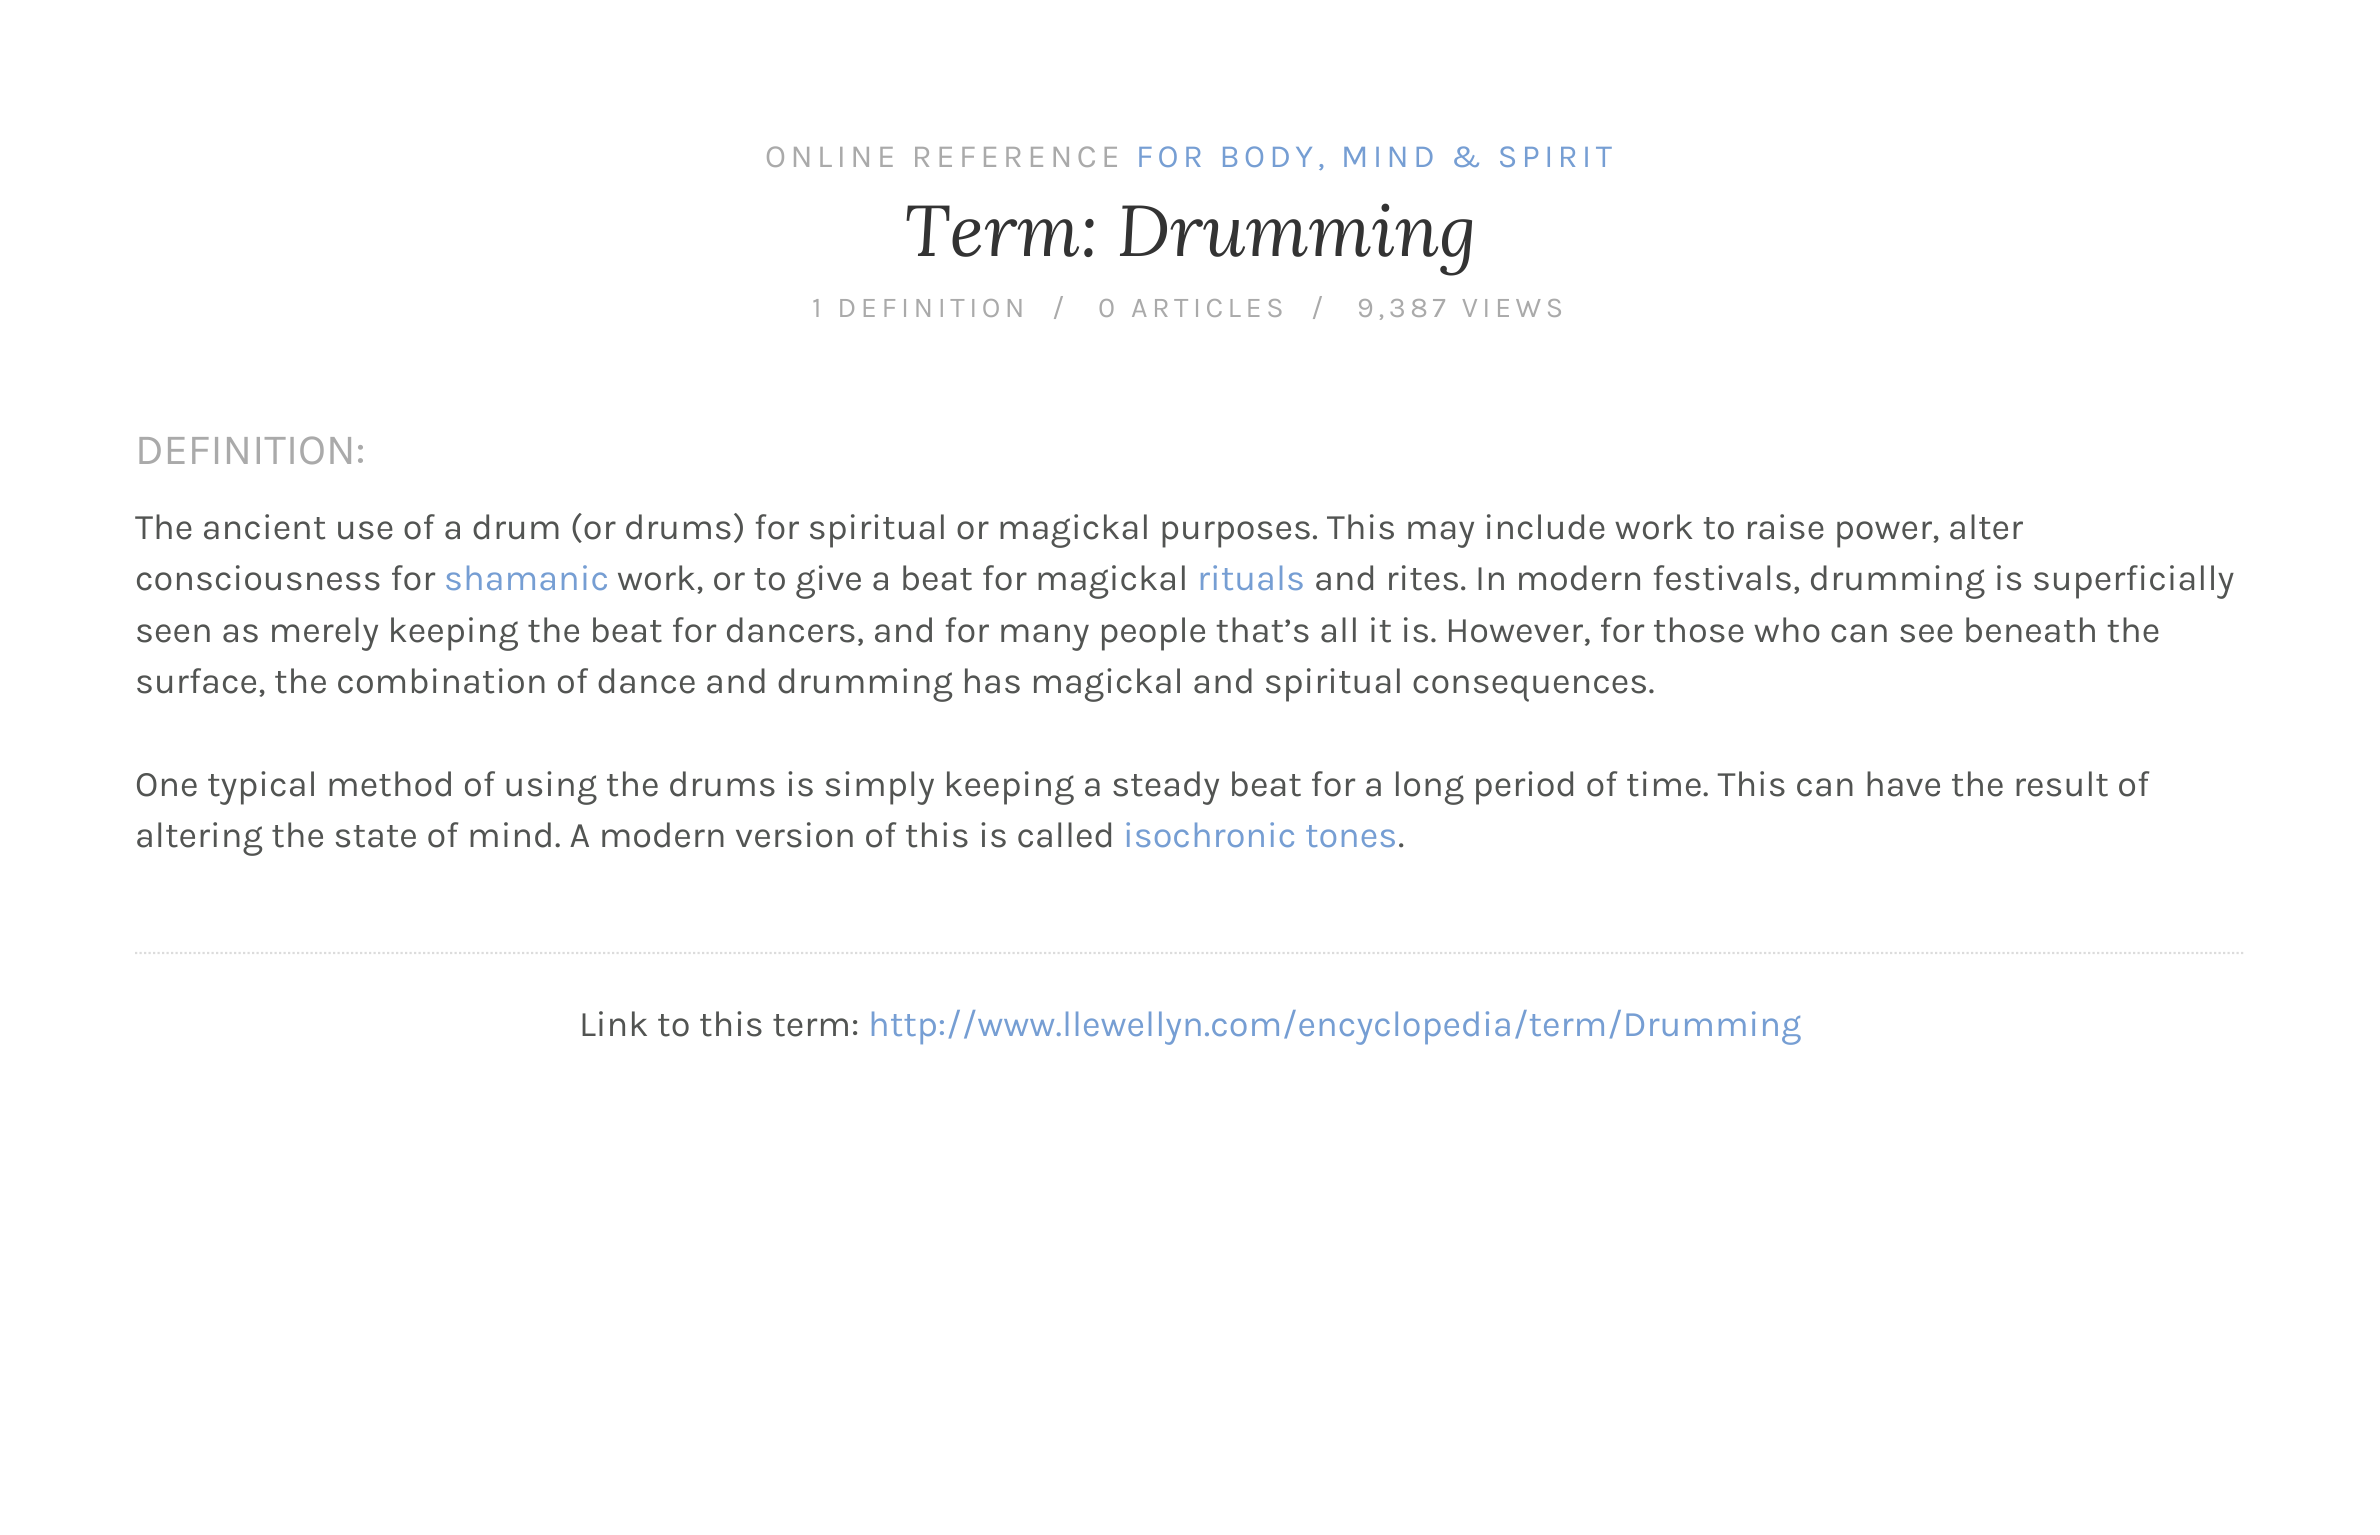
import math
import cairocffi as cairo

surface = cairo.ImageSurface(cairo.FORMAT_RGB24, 2380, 1535)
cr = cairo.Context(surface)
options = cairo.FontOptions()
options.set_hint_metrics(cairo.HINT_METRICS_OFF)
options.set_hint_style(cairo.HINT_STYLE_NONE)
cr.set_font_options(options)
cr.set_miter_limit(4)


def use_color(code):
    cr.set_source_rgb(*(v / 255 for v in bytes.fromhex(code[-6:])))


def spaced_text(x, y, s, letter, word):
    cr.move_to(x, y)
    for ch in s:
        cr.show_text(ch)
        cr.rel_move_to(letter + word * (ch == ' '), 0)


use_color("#ffffff")
cr.paint()
cr.select_font_face("Karla")
cr.set_font_size(32.4)
use_color("#aaaaaa")
spaced_text(765, 167, "ONLINE REFERENCE", 4.5, 0)
use_color("#769ed3")
spaced_text(1136, 167, "FOR BODY, MIND & SPIRIT", 4.5, 0)
cr.select_font_face("Lora", cairo.FONT_SLANT_ITALIC)
cr.set_font_size(72)
use_color("#333333")
cr.move_to(904, 256)
cr.show_text("Term: Drumming")
cr.select_font_face("Karla")
cr.set_font_size(28.75)
use_color("#aaaaaa")
spaced_text(812, 317, "1 DEFINITION", 4.5, 0)
spaced_text(1052, 317, "/", 4.5, 0)
spaced_text(1098, 317, "0 ARTICLES", 4.5, 0)
spaced_text(1311, 317, "/", 4.5, 0)
spaced_text(1357, 317, "9,387 VIEWS", 4.5, 0)
cr.set_font_size(43.25)
cr.move_to(135, 464)
cr.show_text("DEFINITION:")
cr.set_font_size(36)
use_color("#525452")
cr.move_to(135, 539)
cr.show_text("The ancient use of a drum (or drums) for spiritual or magickal purposes. This may include work to raise power, alter")
cr.move_to(135, 590)
cr.show_text("consciousness for")
use_color("#769ed3")
cr.move_to(444, 590)
cr.show_text("shamanic")
use_color("#525452")
cr.move_to(617, 590)
cr.show_text("work, or to give a beat for magickal")
use_color("#769ed3")
cr.move_to(1197, 590)
cr.show_text("rituals")
use_color("#525452")
cr.move_to(1314, 590)
cr.show_text("and rites. In modern festivals, drumming is superficially")
cr.move_to(135, 642)
cr.show_text("seen as merely keeping the beat for dancers, and for many people that’s all it is. However, for those who can see beneath the")
cr.move_to(135, 693)
cr.show_text("surface, the combination of dance and drumming has magickal and spiritual consequences.")
cr.move_to(135, 796)
cr.show_text("One typical method of using the drums is simply keeping a steady beat for a long period of time. This can have the result of")
cr.move_to(135, 847)
cr.show_text("altering the state of mind. A modern version of this is called")
use_color("#769ed3")
cr.move_to(1123, 847)
cr.show_text("isochronic tones")
use_color("#525452")
cr.move_to(1398, 847)
cr.show_text(".")
cr.new_path()
cr.move_to(135, 953)
cr.line_to(2245.5, 953)
use_color("#dcdcdc")
cr.set_line_width(2.2)
cr.set_dash([2.25, 2.25])
cr.stroke()
use_color("#525452")
cr.move_to(579, 1036)
cr.show_text("Link to this term:")
use_color("#769ed3")
cr.move_to(868, 1036)
cr.show_text("http://www.llewellyn.com/encyclopedia/term/Drumming")
surface.write_to_png("result.png")
